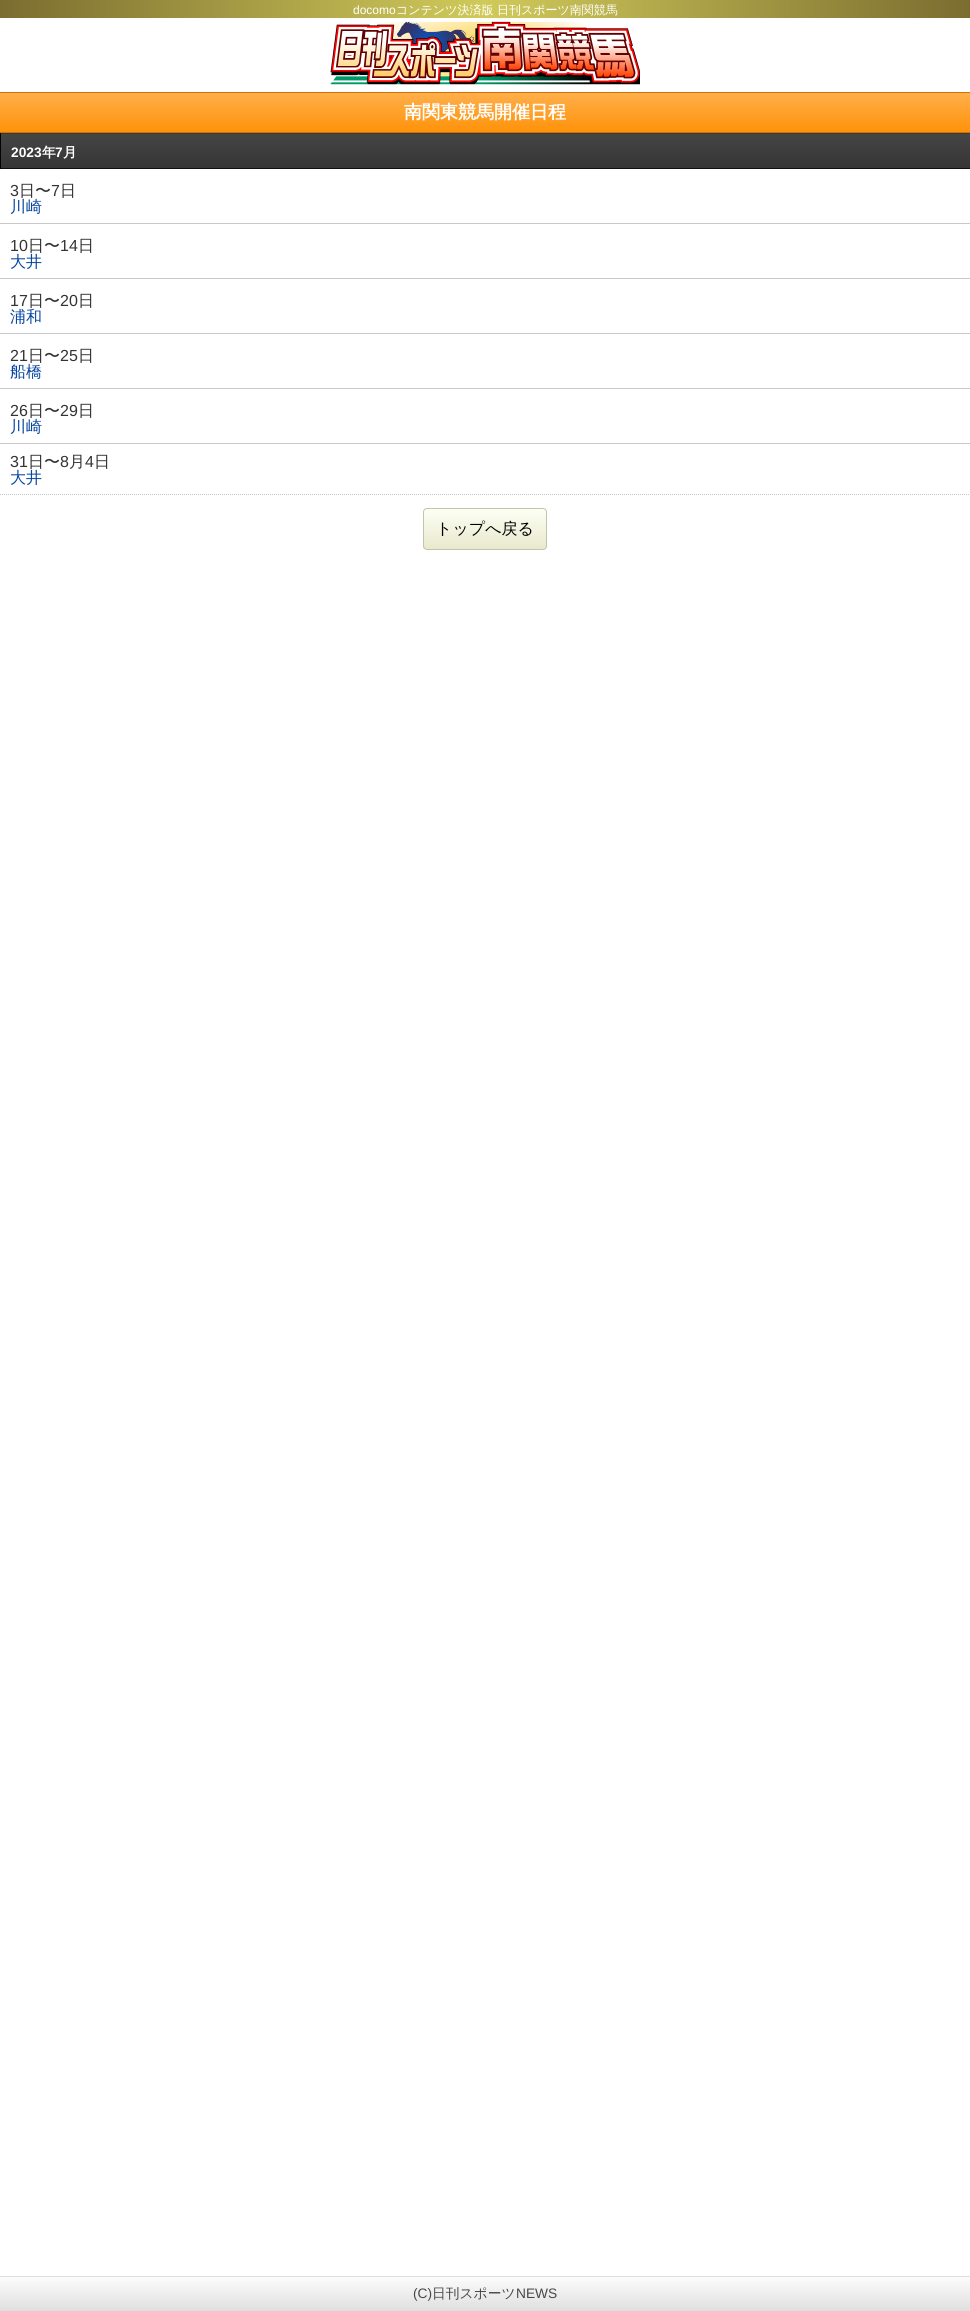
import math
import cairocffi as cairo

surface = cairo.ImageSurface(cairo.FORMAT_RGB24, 970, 2311)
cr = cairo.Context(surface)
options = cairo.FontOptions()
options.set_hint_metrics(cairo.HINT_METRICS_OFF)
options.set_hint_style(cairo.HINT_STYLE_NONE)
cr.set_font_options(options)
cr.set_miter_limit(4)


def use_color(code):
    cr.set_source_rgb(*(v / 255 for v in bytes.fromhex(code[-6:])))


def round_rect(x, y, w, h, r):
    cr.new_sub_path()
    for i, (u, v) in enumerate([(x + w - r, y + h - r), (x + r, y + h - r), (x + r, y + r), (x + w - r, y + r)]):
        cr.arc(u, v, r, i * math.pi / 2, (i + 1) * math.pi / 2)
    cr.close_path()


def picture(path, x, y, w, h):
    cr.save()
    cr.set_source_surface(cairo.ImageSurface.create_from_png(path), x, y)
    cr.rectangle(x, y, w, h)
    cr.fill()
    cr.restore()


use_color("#ffffff")
cr.paint()
gradient = cairo.LinearGradient(0, 9, 970, 9)
gradient.add_color_stop_rgba(0, 0.482, 0.427, 0.188, 1)
gradient.add_color_stop_rgba(0.5, 0.816, 0.792, 0.353, 1)
gradient.add_color_stop_rgba(1, 0.482, 0.427, 0.188, 1)
cr.set_source(gradient)
cr.rectangle(0, 0, 970, 18)
cr.fill()
cr.select_font_face("Liberation Sans")
cr.set_font_size(12)
use_color("#ffffff")
cr.move_to(353, 14)
cr.show_text("docomo")
cr.select_font_face("WenQuanYi Zen Hei Medium")
cr.move_to(396, 14)
cr.show_text("コンテンツ決済版 日刊スポーツ南関競馬")
picture("img1.png", 330, 21, 310, 64)
gradient = cairo.LinearGradient(0, 93, 0, 132)
gradient.add_color_stop_rgba(0, 1, 0.686, 0.294, 1)
gradient.add_color_stop_rgba(1, 1, 0.573, 0.039, 1)
cr.set_source(gradient)
cr.rectangle(0, 93, 970, 39)
cr.fill()
use_color("#d07300")
cr.rectangle(0, 92, 970, 1)
cr.fill()
cr.rectangle(0, 132, 970, 1)
cr.fill()
cr.select_font_face("WenQuanYi Zen Hei", cairo.FONT_SLANT_NORMAL, cairo.FONT_WEIGHT_BOLD)
cr.set_font_size(18)
use_color("#ffffff")
cr.move_to(404, 118)
cr.show_text("南関東競馬開催日程")
gradient = cairo.LinearGradient(1, 134, 1, 168)
gradient.add_color_stop_rgba(0, 0.271, 0.271, 0.271, 1)
gradient.add_color_stop_rgba(1, 0.208, 0.208, 0.208, 1)
cr.set_source(gradient)
cr.rectangle(1, 134, 969, 34)
cr.fill()
use_color("#383838")
cr.rectangle(0, 133, 970, 1)
cr.fill()
use_color("#0f0f0f")
cr.rectangle(0, 168, 970, 1)
cr.fill()
use_color("#030303")
cr.rectangle(0, 133, 1, 36)
cr.fill()
cr.select_font_face("Liberation Sans", cairo.FONT_SLANT_NORMAL, cairo.FONT_WEIGHT_BOLD)
cr.set_font_size(13.75)
use_color("#ffffff")
cr.move_to(11, 157)
cr.show_text("2023")
cr.select_font_face("WenQuanYi Zen Hei", cairo.FONT_SLANT_NORMAL, cairo.FONT_WEIGHT_BOLD)
cr.move_to(42, 157)
cr.show_text("年")
cr.select_font_face("Liberation Sans", cairo.FONT_SLANT_NORMAL, cairo.FONT_WEIGHT_BOLD)
cr.move_to(55, 157)
cr.show_text("7")
cr.select_font_face("WenQuanYi Zen Hei", cairo.FONT_SLANT_NORMAL, cairo.FONT_WEIGHT_BOLD)
cr.move_to(63, 157)
cr.show_text("月")
use_color("#c8c8c8")
cr.rectangle(0, 223, 970, 1)
cr.fill()
cr.select_font_face("Liberation Sans")
cr.set_font_size(16)
use_color("#333333")
cr.move_to(10, 196)
cr.show_text("3")
cr.select_font_face("WenQuanYi Zen Hei Medium")
cr.move_to(19, 196)
cr.show_text("日〜")
cr.select_font_face("Liberation Sans")
cr.move_to(51, 196)
cr.show_text("7")
cr.select_font_face("WenQuanYi Zen Hei Medium")
cr.move_to(60, 196)
cr.show_text("日")
use_color("#0646a0")
cr.move_to(10, 212)
cr.show_text("川崎")
use_color("#c8c8c8")
cr.rectangle(0, 278, 970, 1)
cr.fill()
cr.select_font_face("Liberation Sans")
use_color("#333333")
cr.move_to(10, 251)
cr.show_text("10")
cr.select_font_face("WenQuanYi Zen Hei Medium")
cr.move_to(28, 251)
cr.show_text("日〜")
cr.select_font_face("Liberation Sans")
cr.move_to(60, 251)
cr.show_text("14")
cr.select_font_face("WenQuanYi Zen Hei Medium")
cr.move_to(78, 251)
cr.show_text("日")
use_color("#0646a0")
cr.move_to(10, 267)
cr.show_text("大井")
use_color("#c8c8c8")
cr.rectangle(0, 333, 970, 1)
cr.fill()
cr.select_font_face("Liberation Sans")
use_color("#333333")
cr.move_to(10, 306)
cr.show_text("17")
cr.select_font_face("WenQuanYi Zen Hei Medium")
cr.move_to(28, 306)
cr.show_text("日〜")
cr.select_font_face("Liberation Sans")
cr.move_to(60, 306)
cr.show_text("20")
cr.select_font_face("WenQuanYi Zen Hei Medium")
cr.move_to(78, 306)
cr.show_text("日")
use_color("#0646a0")
cr.move_to(10, 322)
cr.show_text("浦和")
use_color("#c8c8c8")
cr.rectangle(0, 388, 970, 1)
cr.fill()
cr.select_font_face("Liberation Sans")
use_color("#333333")
cr.move_to(10, 361)
cr.show_text("21")
cr.select_font_face("WenQuanYi Zen Hei Medium")
cr.move_to(28, 361)
cr.show_text("日〜")
cr.select_font_face("Liberation Sans")
cr.move_to(60, 361)
cr.show_text("25")
cr.select_font_face("WenQuanYi Zen Hei Medium")
cr.move_to(78, 361)
cr.show_text("日")
use_color("#0646a0")
cr.move_to(10, 377)
cr.show_text("船橋")
use_color("#c8c8c8")
cr.rectangle(0, 443, 970, 1)
cr.fill()
cr.select_font_face("Liberation Sans")
use_color("#333333")
cr.move_to(10, 416)
cr.show_text("26")
cr.select_font_face("WenQuanYi Zen Hei Medium")
cr.move_to(28, 416)
cr.show_text("日〜")
cr.select_font_face("Liberation Sans")
cr.move_to(60, 416)
cr.show_text("29")
cr.select_font_face("WenQuanYi Zen Hei Medium")
cr.move_to(78, 416)
cr.show_text("日")
use_color("#0646a0")
cr.move_to(10, 432)
cr.show_text("川崎")
cr.select_font_face("Liberation Sans")
use_color("#333333")
cr.move_to(10, 467)
cr.show_text("31")
cr.select_font_face("WenQuanYi Zen Hei Medium")
cr.move_to(28, 467)
cr.show_text("日〜")
cr.select_font_face("Liberation Sans")
cr.move_to(60, 467)
cr.show_text("8")
cr.select_font_face("WenQuanYi Zen Hei Medium")
cr.move_to(69, 467)
cr.show_text("月")
cr.select_font_face("Liberation Sans")
cr.move_to(85, 467)
cr.show_text("4")
cr.select_font_face("WenQuanYi Zen Hei Medium")
cr.move_to(94, 467)
cr.show_text("日")
use_color("#0646a0")
cr.move_to(10, 483)
cr.show_text("大井")
cr.new_path()
cr.move_to(0, 494.5)
cr.line_to(970, 494.5)
use_color("#c8c8c8")
cr.set_line_width(1)
cr.set_dash([1, 1])
cr.stroke()
cr.save()
round_rect(423, 508, 124, 42, 4)
cr.clip()
gradient = cairo.LinearGradient(424, 509, 424, 549)
gradient.add_color_stop_rgba(0, 0.988, 1, 0.957, 1)
gradient.add_color_stop_rgba(1, 0.914, 0.914, 0.808, 1)
cr.set_source(gradient)
cr.rectangle(423, 509, 124, 40)
cr.fill()
cr.restore()
round_rect(423.5, 508.5, 123, 41, 3.5)
use_color("#c4c5a6")
cr.set_dash([])
cr.stroke()
use_color("#000000")
cr.move_to(436, 534)
cr.show_text("トップへ戻る")
gradient = cairo.LinearGradient(485, 2277, 485, 2311)
gradient.add_color_stop_rgba(0, 0.988, 0.988, 0.988, 1)
gradient.add_color_stop_rgba(1, 0.875, 0.875, 0.875, 1)
cr.set_source(gradient)
cr.rectangle(0, 2277, 970, 34)
cr.fill()
use_color("#dddddd")
cr.rectangle(0, 2276, 970, 1)
cr.fill()
cr.select_font_face("Liberation Sans")
cr.set_font_size(13.75)
use_color("#484848")
cr.move_to(413, 2298)
cr.show_text("(C)")
cr.select_font_face("WenQuanYi Zen Hei Medium")
cr.move_to(432, 2298)
cr.show_text("日刊スポーツ")
cr.select_font_face("Liberation Sans")
cr.move_to(516, 2298)
cr.show_text("NEWS")
surface.write_to_png("result.png")
